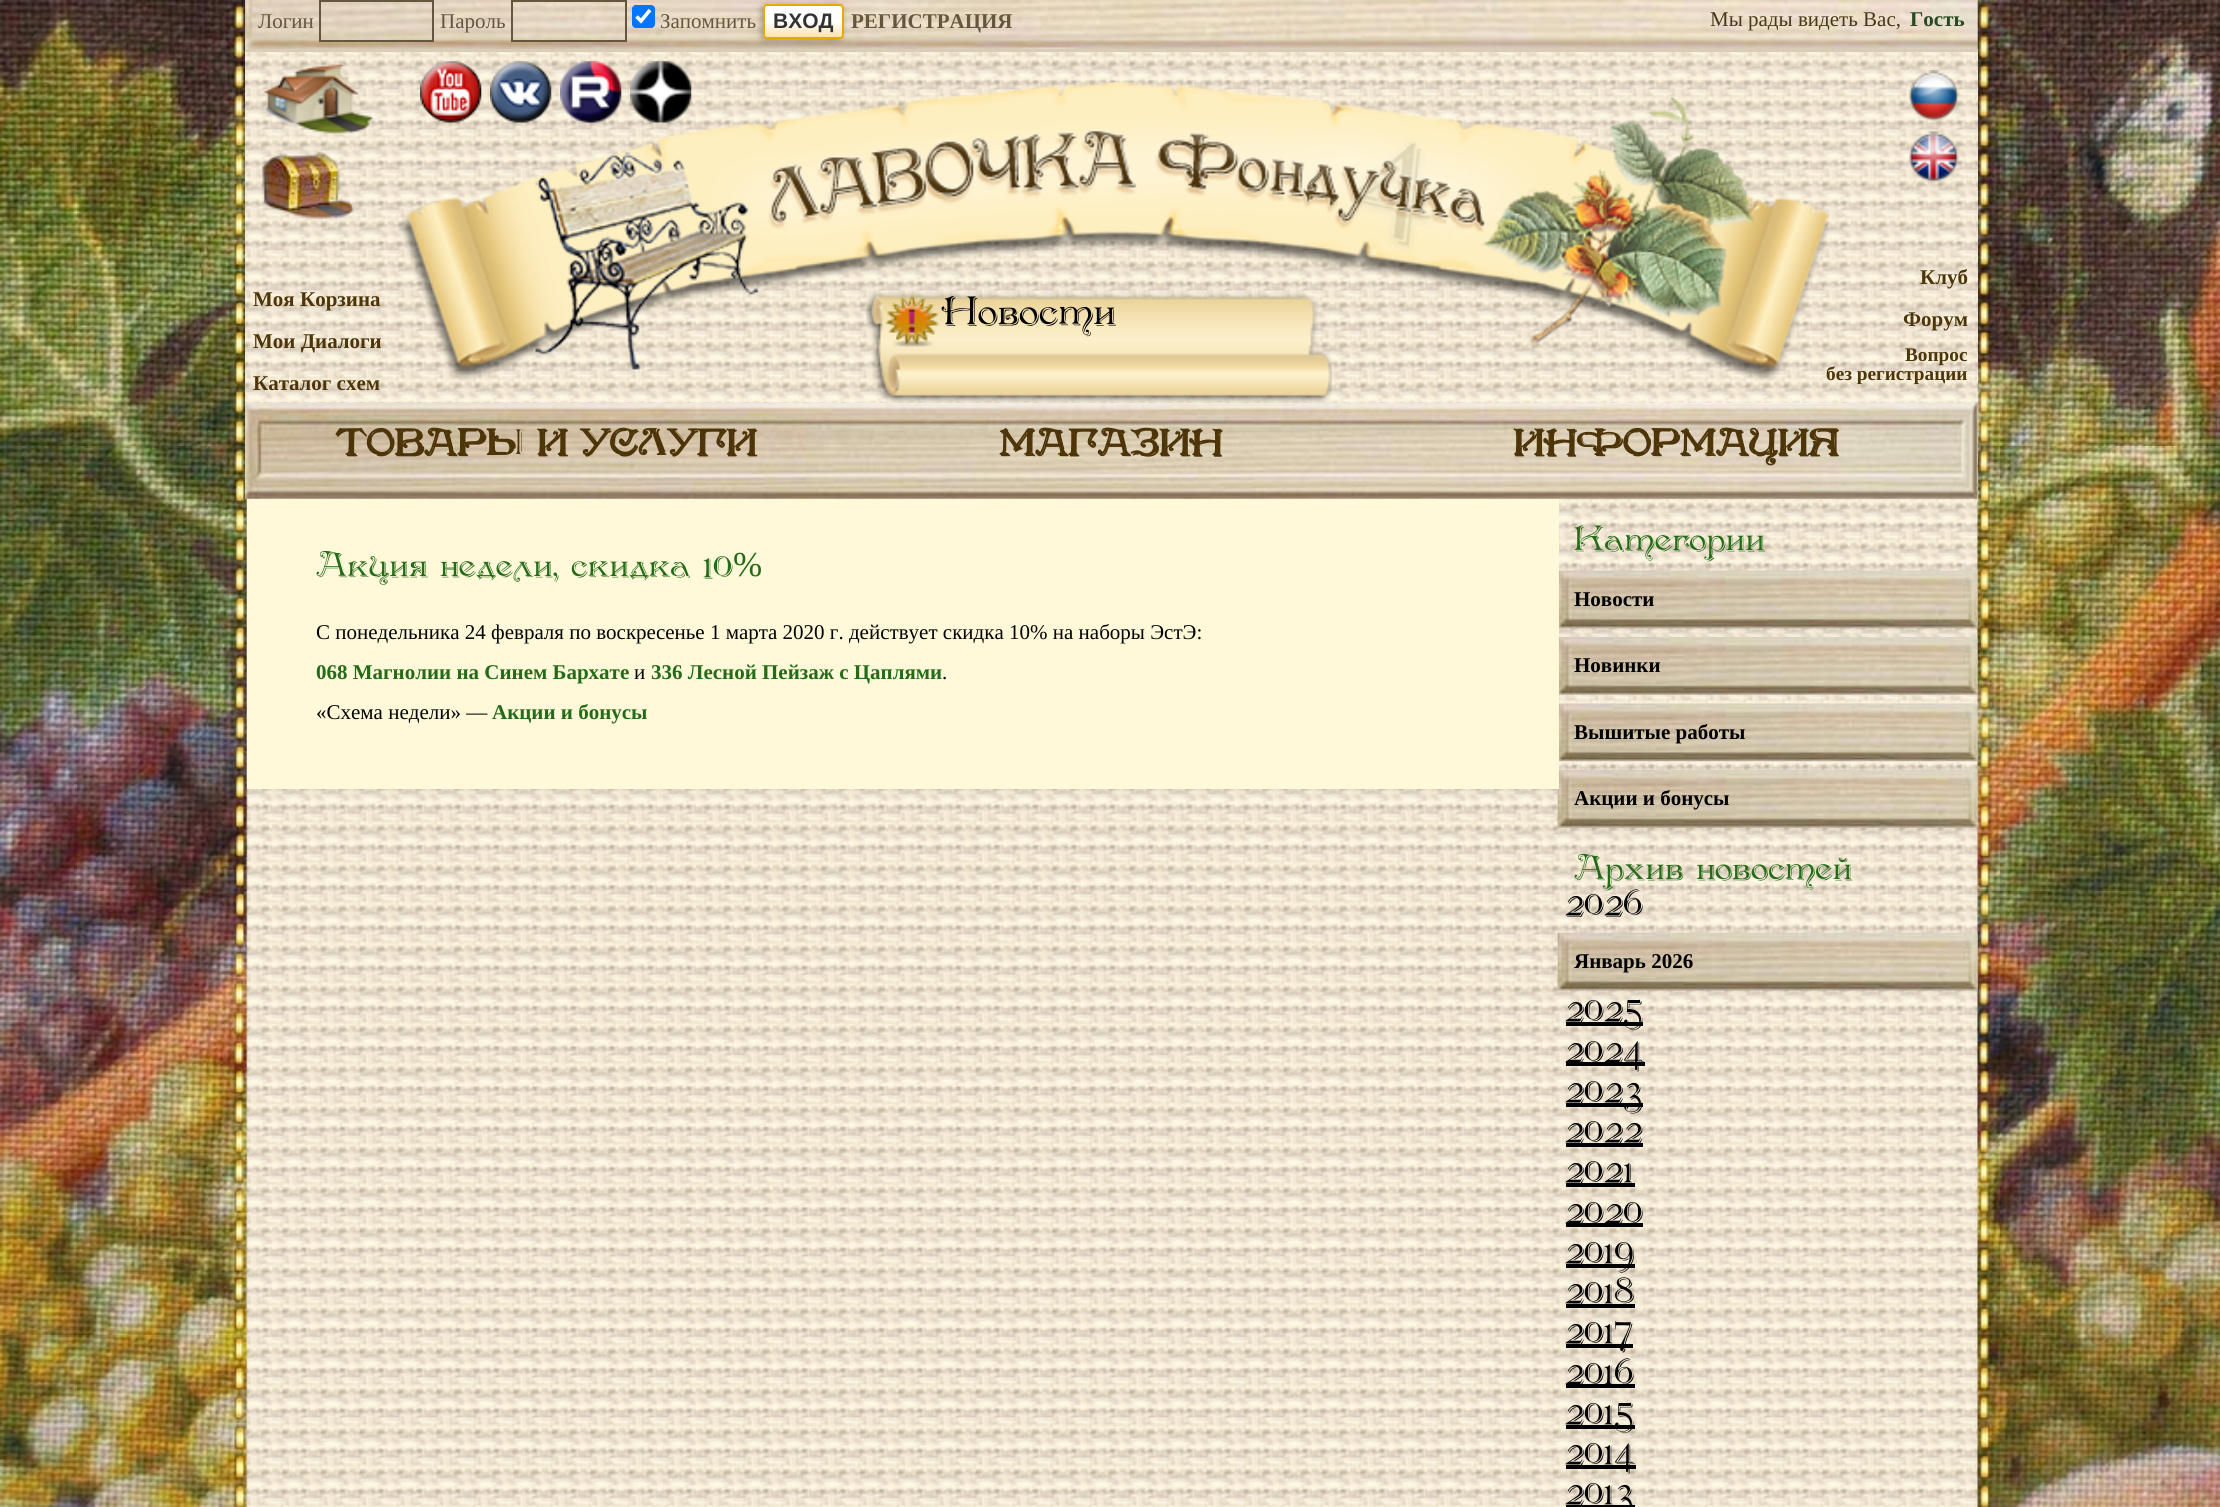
import math
import cairocffi as cairo

surface = cairo.ImageSurface(cairo.FORMAT_RGB24, 2220, 1507)
cr = cairo.Context(surface)
options = cairo.FontOptions()
options.set_hint_metrics(cairo.HINT_METRICS_OFF)
options.set_hint_style(cairo.HINT_STYLE_NONE)
cr.set_font_options(options)
cr.set_miter_limit(4)


def use_color(code):
    cr.set_source_rgb(*(v / 255 for v in bytes.fromhex(code[-6:])))


def round_rect(x, y, w, h, r):
    cr.new_sub_path()
    for i, (u, v) in enumerate([(x + w - r, y + h - r), (x + r, y + h - r), (x + r, y + r), (x + w - r, y + r)]):
        cr.arc(u, v, r, i * math.pi / 2, (i + 1) * math.pi / 2)
    cr.close_path()


def shadow(x, y, w, h, r, blur, alpha):
    cr.push_group_with_content(cairo.CONTENT_ALPHA)
    cr.set_operator(cairo.OPERATOR_SOURCE)
    for i in range(15, -16, -2):
        e = blur * i / 6
        if min(w, h) + 2 * e > 0:
            cr.set_source_rgba(0, 0, 0, alpha * math.erfc((i - 1) / 8.5) / 2)
            round_rect(x - e, y - e, w + 2 * e, h + 2 * e, max(0, min(r + e + blur * .6, min(w, h) / 2 + e)))
            cr.fill()
    cr.mask(cr.pop_group())


def picture(path, x, y, w, h):
    cr.save()
    cr.set_source_surface(cairo.ImageSurface.create_from_png(path), x, y)
    cr.rectangle(x, y, w, h)
    cr.fill()
    cr.restore()


use_color("#ffffff")
cr.paint()
picture("img1.png", 246, 0, 1732, 1507)
picture("img2.png", 0, 0, 248, 1507)
picture("img23.png", 1977, 0, 243, 1507)
picture("img3.png", 245, 0, 1733, 49)
use_color("#d9cdb3")
cr.rectangle(245, 49, 1733, 3)
cr.fill()
cr.select_font_face("Liberation Serif")
cr.set_font_size(21)
use_color("#65573d")
cr.move_to(258, 28)
cr.show_text("Логин")
cr.rectangle(320, 1, 113, 40)
cr.stroke()
cr.move_to(440, 28)
cr.show_text("Пароль")
cr.rectangle(512, 1, 114, 40)
cr.stroke()
use_color("#0075ff")
round_rect(632, 5, 23, 23, 4)
cr.fill()
cr.new_path()
cr.move_to(636.5, 16.5)
cr.line_to(641, 21)
cr.line_to(650, 10)
use_color("#ffffff")
cr.set_line_width(3.6)
cr.stroke()
use_color("#65573d")
cr.move_to(660, 28)
cr.show_text("Запомнить")
use_color("#000000")
shadow(761, 5, 81, 35, 4, 3.5, 0.3)
cr.save()
round_rect(763, 4, 81, 35, 4)
cr.clip()
gradient = cairo.LinearGradient(765, 5.2, 765, 37)
gradient.add_color_stop_rgba(0, 1, 1, 1, 1)
gradient.add_color_stop_rgba(0.5, 1, 1, 1, 1)
gradient.add_color_stop_rgba(1, 0.988, 0.89, 0.69, 1)
cr.set_source(gradient)
cr.rectangle(763, 5, 81, 32)
cr.fill()
cr.restore()
round_rect(764, 5, 79, 33, 3)
use_color("#e8aa00")
cr.set_line_width(2)
cr.stroke()
cr.select_font_face("Liberation Sans", cairo.FONT_SLANT_NORMAL, cairo.FONT_WEIGHT_BOLD)
use_color("#333333")
cr.move_to(773, 28)
cr.show_text("ВХОД")
cr.select_font_face("Liberation Serif", cairo.FONT_SLANT_NORMAL, cairo.FONT_WEIGHT_BOLD)
use_color("#65573d")
cr.move_to(851, 28)
cr.show_text("РЕГИСТРАЦИЯ")
cr.select_font_face("Liberation Serif")
use_color("#473817")
cr.move_to(1710, 26)
cr.show_text("Мы рады видеть Вас,")
cr.select_font_face("Liberation Serif", cairo.FONT_SLANT_NORMAL, cairo.FONT_WEIGHT_BOLD)
use_color("#294920")
cr.move_to(1910, 26)
cr.show_text("Гость")
picture("img4.png", 245, 52, 1733, 447)
picture("img5.png", 399, 82, 1430, 299)
picture("img6.png", 264, 63, 109, 72)
picture("img7.png", 420, 61, 62, 62)
picture("img8.png", 490, 61, 62, 62)
picture("img9.png", 560, 61, 62, 62)
picture("img10.png", 630, 61, 62, 62)
picture("img11.png", 262, 152, 92, 69)
picture("img12.png", 1909, 70, 50, 51)
picture("img13.png", 1909, 131, 50, 52)
use_color("#4d3509")
cr.move_to(253, 306)
cr.show_text("Моя Корзина")
cr.move_to(253, 348)
cr.show_text("Мои Диалоги")
cr.move_to(253, 390)
cr.show_text("Каталог схем")
cr.move_to(1920, 284)
cr.show_text("Клуб")
cr.move_to(1903, 326)
cr.show_text("Форум")
cr.set_font_size(19.25)
cr.move_to(1905, 361)
cr.show_text("Вопрос")
cr.move_to(1826, 380)
cr.show_text("без регистрации")
picture("img14.png", 866, 292, 452, 61)
picture("img17.png", 245, 402, 1733, 97)
picture("img16.png", 871, 344, 461, 59)
picture("img15.png", 885, 295, 55, 52)
cr.select_font_face("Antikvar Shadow")
cr.set_font_size(40.25)
use_color("#000000")
cr.move_to(941, 324)
cr.show_text("Новости")
cr.select_font_face("Antikvar Shadow", cairo.FONT_SLANT_NORMAL, cairo.FONT_WEIGHT_BOLD)
cr.set_font_size(36.75)
use_color("#4d3509")
cr.move_to(335, 455)
cr.show_text("ТОВАРЫ И УСЛУГИ")
cr.move_to(999, 455)
cr.show_text("МАГАЗИН")
cr.move_to(1513, 455)
cr.show_text("ИНФОРМАЦИЯ")
picture("img21.png", 1557, 770, 421, 58)
use_color("#fff9d9")
cr.rectangle(247, 499, 1312, 290)
cr.fill()
cr.select_font_face("Antikvar Shadow")
cr.set_font_size(35)
use_color("#236b17")
cr.move_to(316, 576)
cr.show_text("Акция недели, скидка 10")
cr.select_font_face("Liberation Serif")
cr.move_to(733, 576)
cr.show_text("%")
cr.set_font_size(21)
use_color("#000000")
cr.move_to(316, 639)
cr.show_text("С понедельника 24 февраля по воскресенье 1 марта 2020 г. действует скидка 10% на наборы ЭстЭ:")
cr.select_font_face("Liberation Serif", cairo.FONT_SLANT_NORMAL, cairo.FONT_WEIGHT_BOLD)
use_color("#236b17")
cr.move_to(316, 679)
cr.show_text("068 Магнолии на Синем Бархате")
cr.select_font_face("Liberation Serif")
use_color("#000000")
cr.move_to(634, 679)
cr.show_text("и")
cr.select_font_face("Liberation Serif", cairo.FONT_SLANT_NORMAL, cairo.FONT_WEIGHT_BOLD)
use_color("#236b17")
cr.move_to(651, 679)
cr.show_text("336 Лесной Пейзаж с Цаплями")
cr.select_font_face("Liberation Serif")
use_color("#000000")
cr.move_to(942, 679)
cr.show_text(".")
cr.move_to(316, 719)
cr.show_text("«Схема недели» —")
cr.select_font_face("Liberation Serif", cairo.FONT_SLANT_NORMAL, cairo.FONT_WEIGHT_BOLD)
use_color("#236b17")
cr.move_to(492, 719)
cr.show_text("Акции и бонусы")
cr.select_font_face("Antikvar Shadow")
cr.set_font_size(35)
cr.move_to(1574, 550)
cr.show_text("Категории")
picture("img18.png", 1559, 570, 419, 59)
cr.select_font_face("Liberation Serif", cairo.FONT_SLANT_NORMAL, cairo.FONT_WEIGHT_BOLD)
cr.set_font_size(21)
use_color("#000000")
cr.move_to(1574, 606)
cr.show_text("Новости")
picture("img19.png", 1559, 637, 419, 58)
cr.move_to(1574, 672)
cr.show_text("Новинки")
picture("img20.png", 1559, 703, 419, 59)
cr.move_to(1574, 739)
cr.show_text("Вышитые работы")
cr.move_to(1574, 805)
cr.show_text("Акции и бонусы")
cr.select_font_face("Antikvar Shadow")
cr.set_font_size(35)
use_color("#236b17")
cr.move_to(1574, 879)
cr.show_text("Архив новостей")
use_color("#000000")
cr.move_to(1565, 914)
cr.show_text("2026")
picture("img22.png", 1557, 932, 421, 59)
cr.select_font_face("Liberation Serif", cairo.FONT_SLANT_NORMAL, cairo.FONT_WEIGHT_BOLD)
cr.set_font_size(21)
cr.move_to(1574, 968)
cr.show_text("Январь 2026")
cr.rectangle(1566, 1022, 77, 4)
cr.fill()
cr.select_font_face("Antikvar Shadow")
cr.set_font_size(35)
cr.move_to(1565, 1020)
cr.show_text("2025")
cr.rectangle(1566, 1062, 79, 4)
cr.fill()
cr.move_to(1565, 1061)
cr.show_text("2024")
cr.rectangle(1566, 1103, 77, 4)
cr.fill()
cr.move_to(1565, 1101)
cr.show_text("2023")
cr.rectangle(1566, 1143, 77, 4)
cr.fill()
cr.move_to(1565, 1141)
cr.show_text("2022")
cr.rectangle(1566, 1183, 69, 4)
cr.fill()
cr.move_to(1565, 1181)
cr.show_text("2021")
cr.rectangle(1566, 1223, 77, 4)
cr.fill()
cr.move_to(1565, 1222)
cr.show_text("2020")
cr.rectangle(1566, 1264, 69, 4)
cr.fill()
cr.move_to(1565, 1262)
cr.show_text("2019")
cr.rectangle(1566, 1304, 69, 4)
cr.fill()
cr.move_to(1565, 1302)
cr.show_text("2018")
cr.rectangle(1566, 1344, 67, 4)
cr.fill()
cr.move_to(1565, 1342)
cr.show_text("2017")
cr.rectangle(1566, 1384, 69, 4)
cr.fill()
cr.move_to(1565, 1383)
cr.show_text("2016")
cr.rectangle(1566, 1425, 69, 4)
cr.fill()
cr.move_to(1565, 1423)
cr.show_text("2015")
cr.rectangle(1566, 1465, 70, 4)
cr.fill()
cr.move_to(1565, 1463)
cr.show_text("2014")
cr.rectangle(1566, 1505, 69, 2)
cr.fill()
cr.move_to(1565, 1503)
cr.show_text("2013")
surface.write_to_png("result.png")
